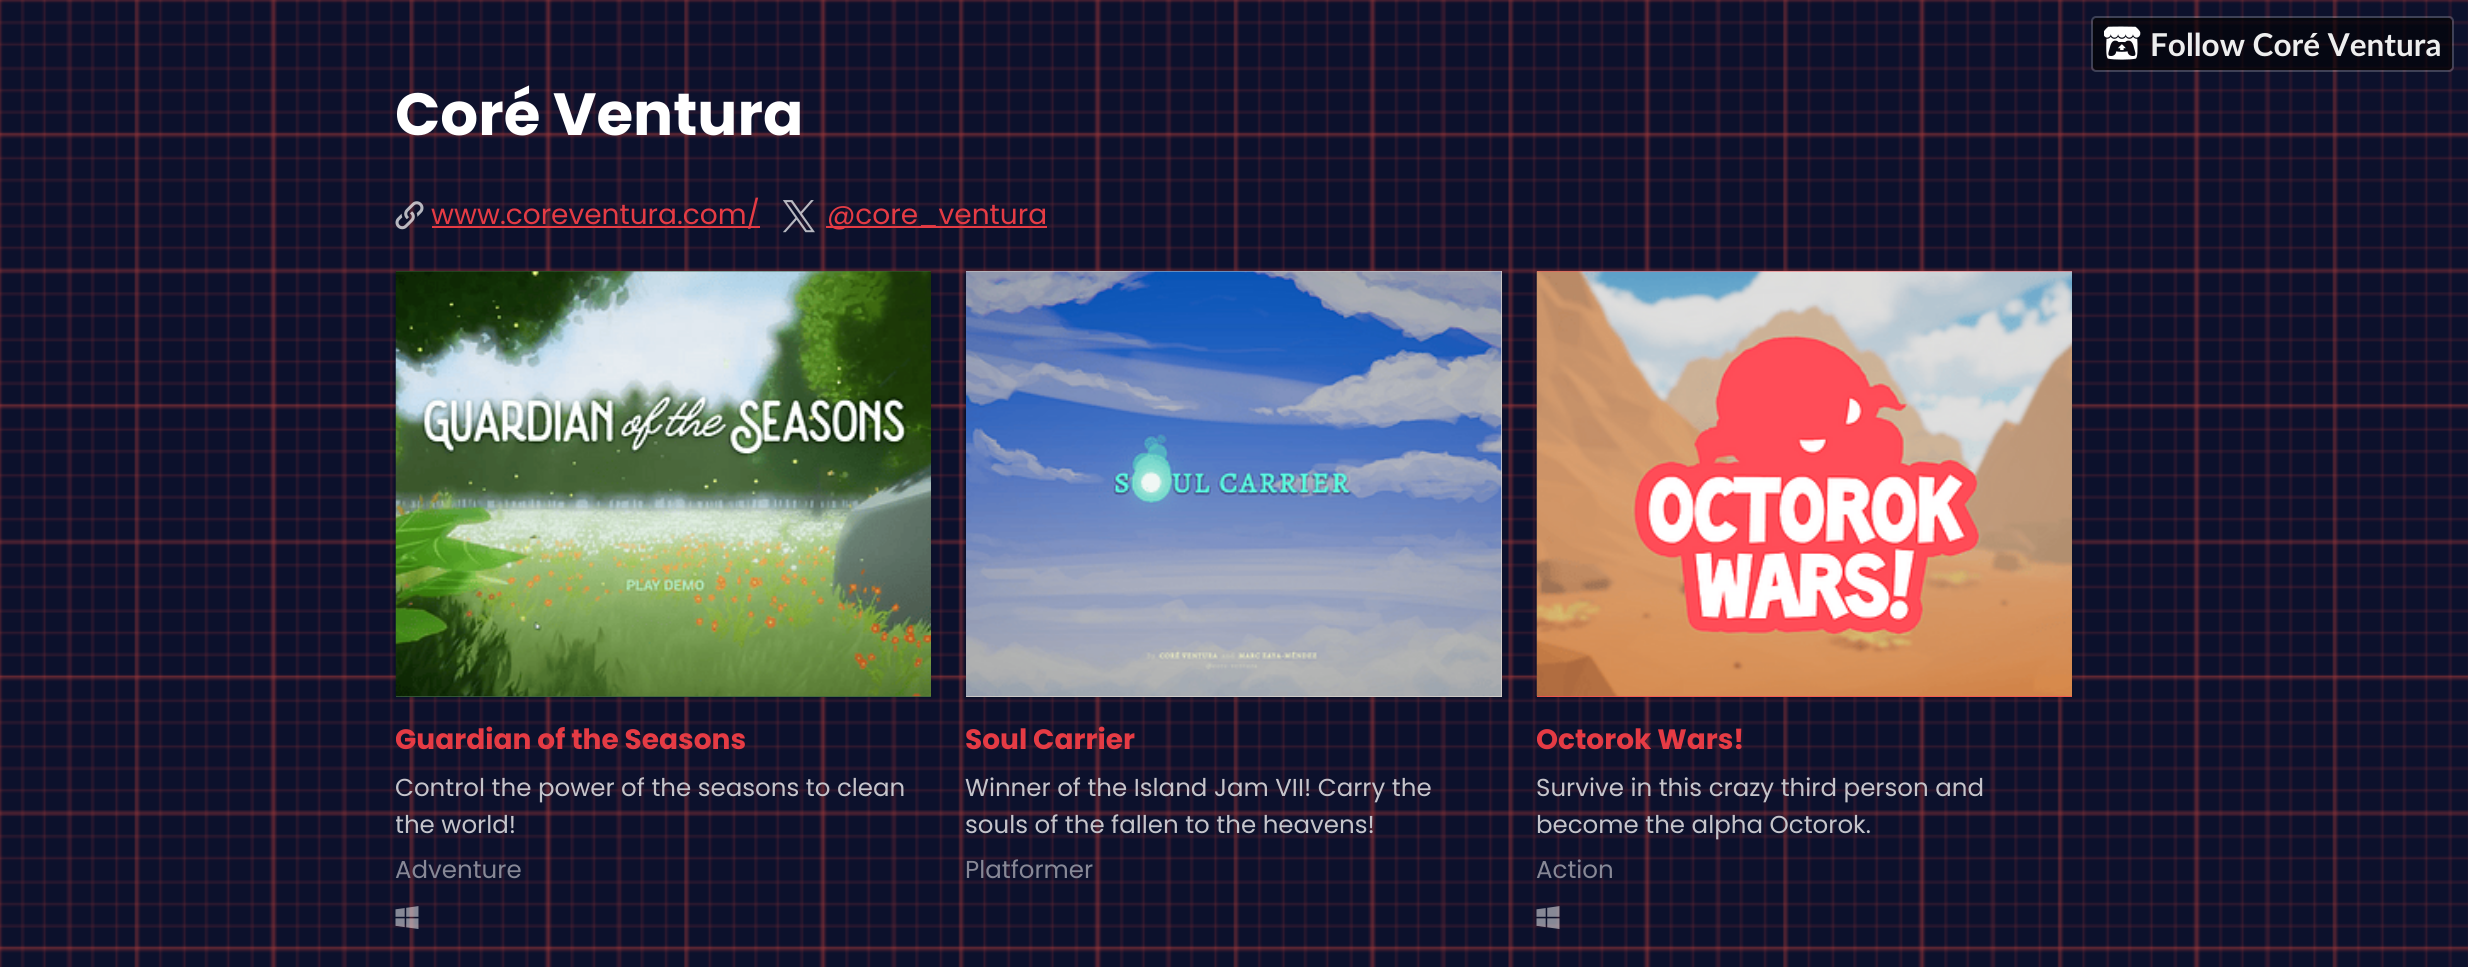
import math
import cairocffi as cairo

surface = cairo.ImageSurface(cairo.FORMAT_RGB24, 2468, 967)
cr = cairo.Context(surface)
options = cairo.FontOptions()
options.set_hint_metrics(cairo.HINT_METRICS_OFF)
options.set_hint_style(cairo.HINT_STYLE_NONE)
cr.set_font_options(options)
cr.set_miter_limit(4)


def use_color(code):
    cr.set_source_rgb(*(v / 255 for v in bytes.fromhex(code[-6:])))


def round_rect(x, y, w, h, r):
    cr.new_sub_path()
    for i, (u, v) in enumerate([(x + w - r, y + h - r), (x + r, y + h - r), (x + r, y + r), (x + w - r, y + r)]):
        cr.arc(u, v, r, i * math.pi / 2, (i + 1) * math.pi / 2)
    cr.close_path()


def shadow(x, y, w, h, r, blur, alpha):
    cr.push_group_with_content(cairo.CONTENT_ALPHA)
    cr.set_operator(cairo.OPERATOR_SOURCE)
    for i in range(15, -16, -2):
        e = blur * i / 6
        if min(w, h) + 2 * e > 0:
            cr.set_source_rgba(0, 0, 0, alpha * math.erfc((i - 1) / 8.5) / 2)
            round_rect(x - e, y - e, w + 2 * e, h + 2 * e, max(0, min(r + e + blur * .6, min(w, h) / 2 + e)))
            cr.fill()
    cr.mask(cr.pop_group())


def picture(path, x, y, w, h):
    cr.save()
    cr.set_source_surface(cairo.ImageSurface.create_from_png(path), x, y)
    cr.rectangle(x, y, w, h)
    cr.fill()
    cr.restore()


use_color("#ffffff")
cr.paint()
picture("img2.png", 0, 0, 2468, 967)
round_rect(2092, 17, 361, 54, 4)
cr.set_source_rgba(1, 1, 1, 0.2)
cr.stroke()
cr.set_source_rgba(0, 0, 0, 0.6)
round_rect(2093, 18, 359, 52, 4)
cr.fill()
round_rect(2094, 19, 357, 50, 3)
cr.set_source_rgba(0.039, 0.039, 0.039, 0.5)
cr.stroke()
picture("img1.png", 2104, 26, 37, 34)
cr.select_font_face("Lato", cairo.FONT_SLANT_NORMAL, cairo.FONT_WEIGHT_BOLD)
cr.set_font_size(31.5)
use_color("#eeeeee")
cr.move_to(2150, 56)
cr.show_text("Follow Coré Ventura")
cr.select_font_face("Poppins", cairo.FONT_SLANT_NORMAL, cairo.FONT_WEIGHT_BOLD)
cr.set_font_size(59.5)
use_color("#ffffff")
cr.move_to(395, 135)
cr.show_text("Coré Ventura")
picture("img3.png", 395, 201, 29, 29)
use_color("#e53b44")
cr.rectangle(432, 226, 328, 2)
cr.fill()
cr.select_font_face("Poppins")
cr.set_font_size(28)
cr.move_to(431, 224)
cr.show_text("www.coreventura.com/")
picture("img4.png", 783, 200, 32, 33)
cr.rectangle(826, 226, 221, 2)
cr.fill()
cr.move_to(827, 224)
cr.show_text("@core_ventura")
use_color("#000000")
shadow(396, 271, 535, 426, 0, 2, 0.15)
use_color("#3d6345")
cr.rectangle(396, 271, 535, 426)
cr.fill()
picture("img5.png", 395, 271, 536, 426)
cr.save()
cr.rectangle(396, 718, 535, 43)
cr.clip()
cr.select_font_face("Poppins", cairo.FONT_SLANT_NORMAL, cairo.FONT_WEIGHT_BOLD)
use_color("#e53b44")
cr.move_to(395, 749)
cr.show_text("Guardian of the Seasons")
cr.restore()
cr.save()
cr.rectangle(396, 770, 535, 74)
cr.clip()
cr.set_font_size(24.5)
use_color("#c5c4ca")
cr.move_to(395, 796)
cr.show_text("Control the power of the seasons to clean")
cr.move_to(395, 833)
cr.show_text("the world!")
cr.restore()
cr.set_font_size(24.5)
use_color("#878896")
cr.move_to(395, 878)
cr.show_text("Adventure")
picture("img6.png", 395, 906, 24, 23)
use_color("#000000")
shadow(966, 271, 536, 426, 0, 2, 0.15)
use_color("#dbd3cc")
cr.rectangle(966, 271, 536, 426)
cr.fill()
picture("img7.png", 966, 271, 536, 426)
cr.select_font_face("Poppins", cairo.FONT_SLANT_NORMAL, cairo.FONT_WEIGHT_BOLD)
cr.set_font_size(28)
use_color("#e53b44")
cr.move_to(965, 749)
cr.show_text("Soul Carrier")
cr.select_font_face("Poppins")
cr.set_font_size(24.5)
use_color("#c5c4ca")
cr.move_to(965, 796)
cr.show_text("Winner of the Island Jam VII! Carry the")
cr.move_to(965, 833)
cr.show_text("souls of the fallen to the heavens!")
use_color("#878896")
cr.move_to(965, 878)
cr.show_text("Platformer")
use_color("#000000")
shadow(1537, 271, 535, 426, 0, 2, 0.15)
use_color("#ff4d56")
cr.rectangle(1537, 271, 535, 426)
cr.fill()
picture("img8.png", 1536, 271, 536, 426)
cr.save()
cr.rectangle(1537, 718, 535, 43)
cr.clip()
cr.select_font_face("Poppins", cairo.FONT_SLANT_NORMAL, cairo.FONT_WEIGHT_BOLD)
cr.set_font_size(28)
use_color("#e53b44")
cr.move_to(1536, 749)
cr.show_text("Octorok Wars!")
cr.restore()
use_color("#c5c4ca")
cr.move_to(1536, 796)
cr.show_text("Survive in this crazy third person and")
cr.move_to(1536, 833)
cr.show_text("become the alpha Octorok.")
use_color("#878896")
cr.move_to(1536, 878)
cr.show_text("Action")
picture("img9.png", 1536, 906, 24, 23)
surface.write_to_png("result.png")
